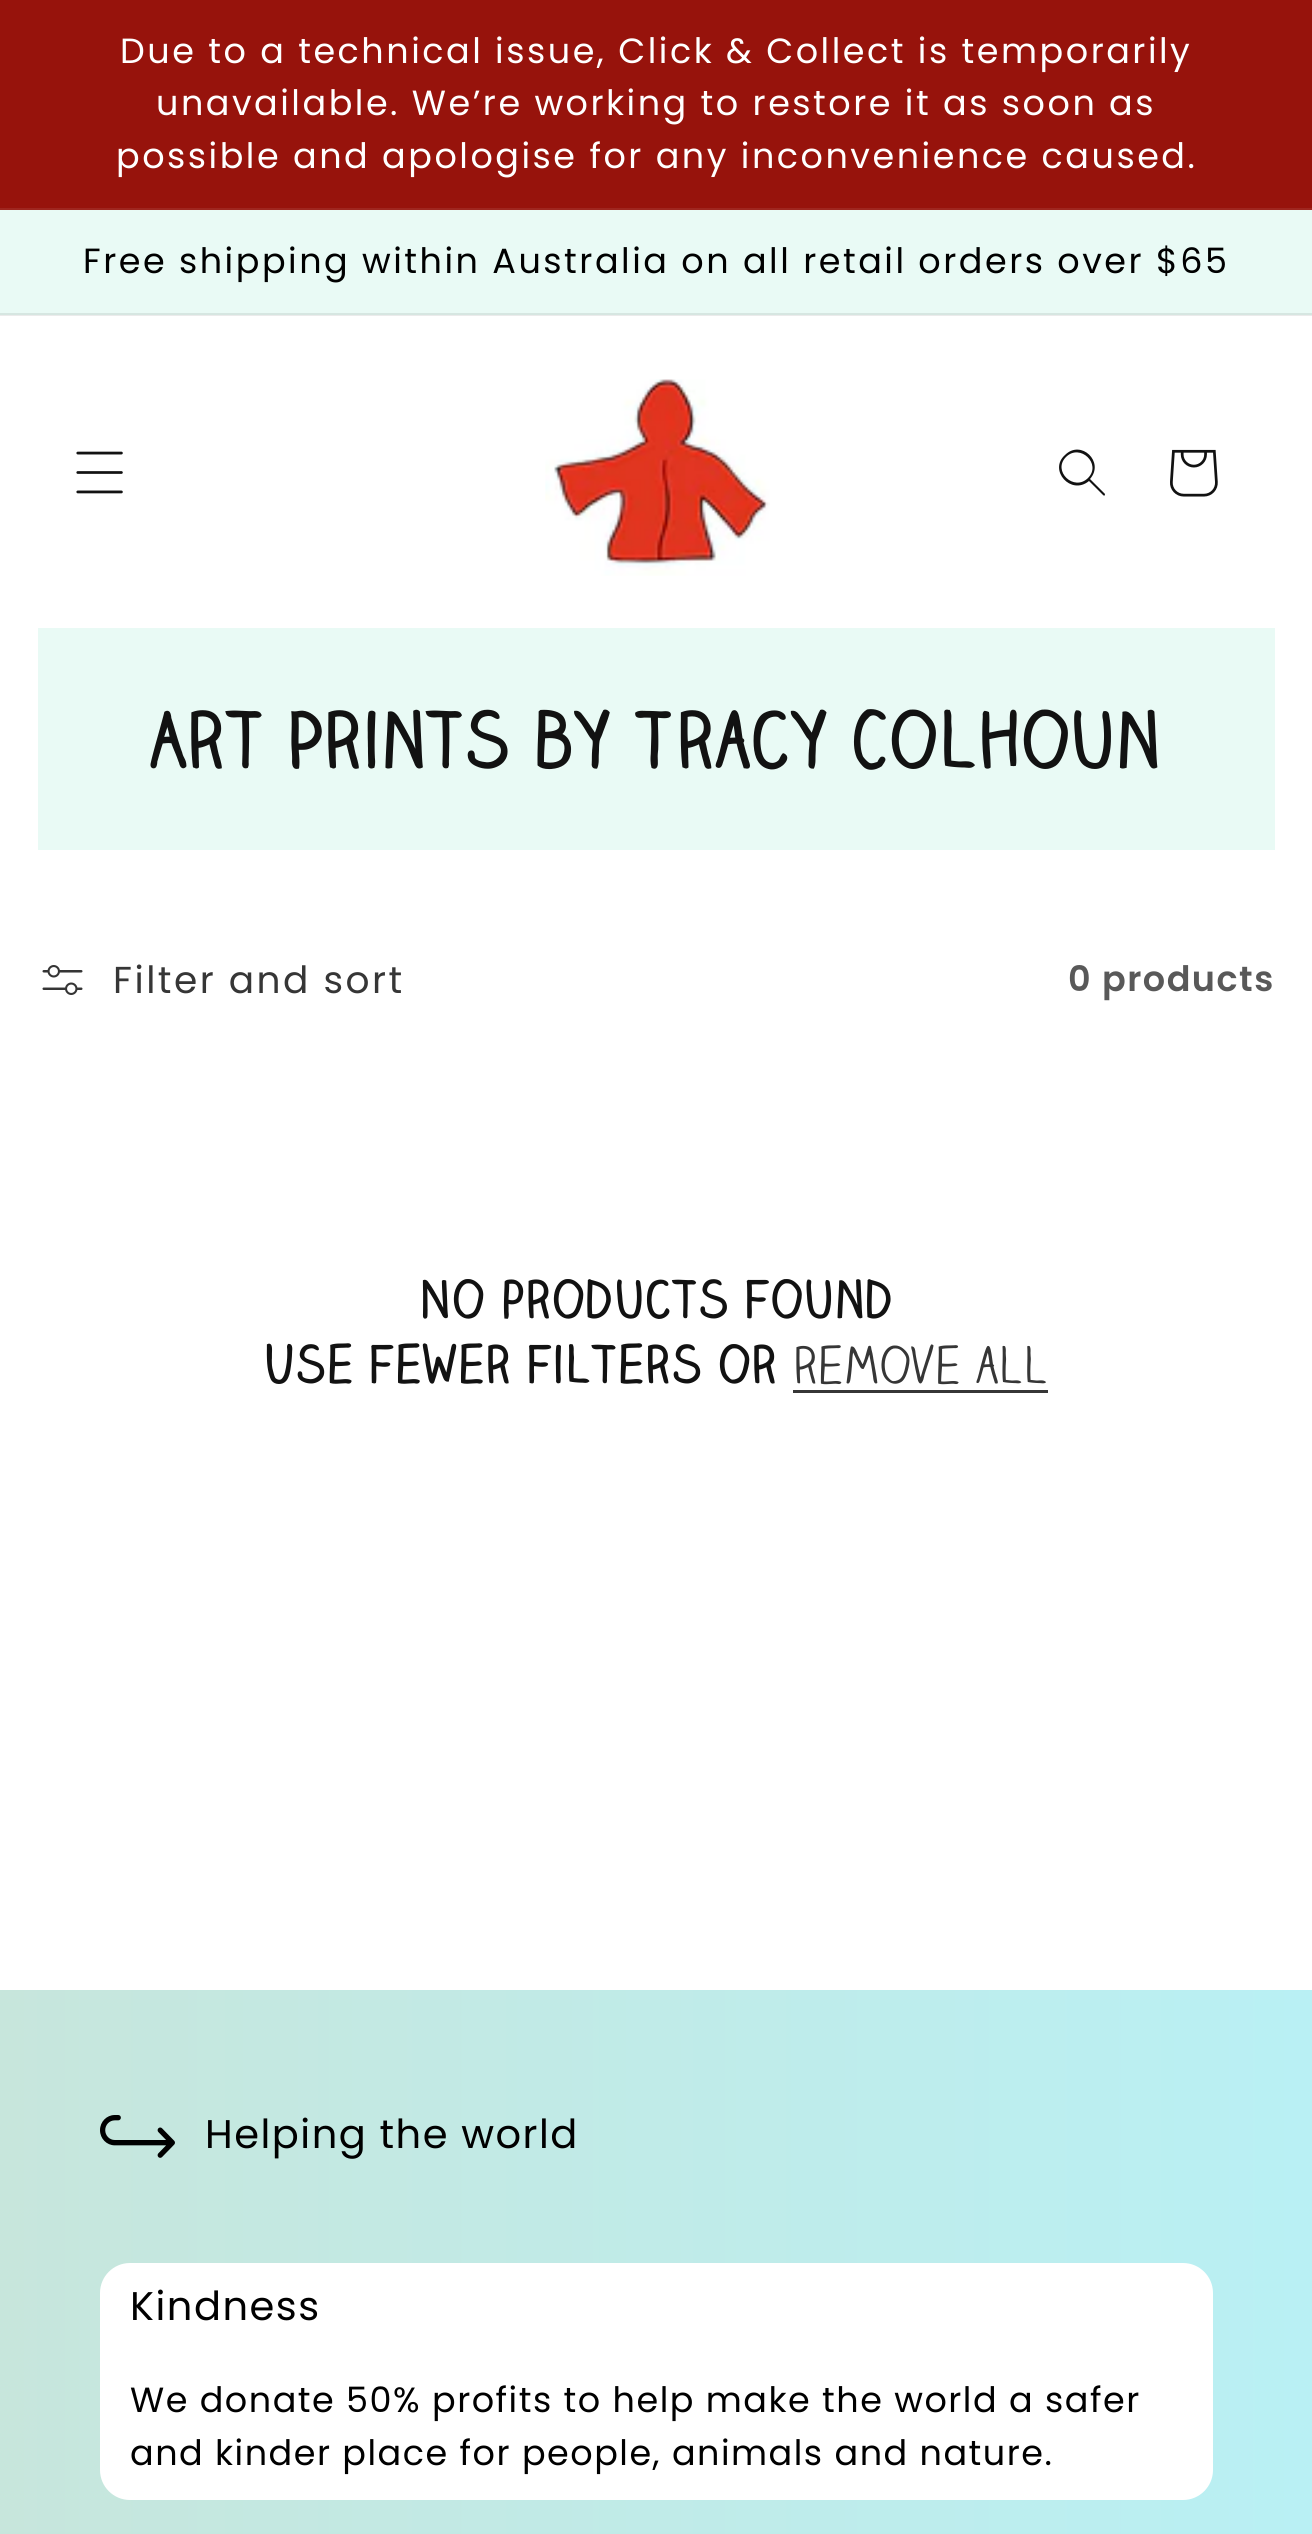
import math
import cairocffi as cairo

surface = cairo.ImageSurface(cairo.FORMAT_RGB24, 1312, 2534)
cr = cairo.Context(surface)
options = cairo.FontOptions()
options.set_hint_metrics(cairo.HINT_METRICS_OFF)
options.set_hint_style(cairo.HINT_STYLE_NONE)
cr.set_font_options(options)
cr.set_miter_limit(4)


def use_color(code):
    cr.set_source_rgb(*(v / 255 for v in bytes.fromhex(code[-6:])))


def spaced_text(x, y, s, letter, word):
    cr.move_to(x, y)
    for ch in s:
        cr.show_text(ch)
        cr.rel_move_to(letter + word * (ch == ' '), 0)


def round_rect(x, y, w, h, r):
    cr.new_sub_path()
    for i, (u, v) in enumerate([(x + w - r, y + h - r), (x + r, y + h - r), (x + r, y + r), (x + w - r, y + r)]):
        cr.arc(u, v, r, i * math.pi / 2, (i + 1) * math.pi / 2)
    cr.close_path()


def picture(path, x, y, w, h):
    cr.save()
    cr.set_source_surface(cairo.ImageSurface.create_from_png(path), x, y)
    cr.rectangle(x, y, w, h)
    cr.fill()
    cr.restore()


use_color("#ffffff")
cr.paint()
use_color("#ebebeb")
cr.rectangle(0, 315, 1312, 1)
cr.fill()
use_color("#97130c")
cr.rectangle(0, 0, 1312, 208)
cr.fill()
use_color("#9f261f")
cr.rectangle(0, 208, 1312, 2)
cr.fill()
cr.select_font_face("Poppins")
cr.set_font_size(35)
use_color("#ffffff")
spaced_text(120, 63, "Due to a technical issue, Click & Collect is temporarily", 2.5, 0)
spaced_text(156, 115, "unavailable. We’re working to restore it as soon as", 2.5, 0)
spaced_text(116, 168, "possible and apologise for any inconvenience caused.", 2.5, 0)
use_color("#e9faf5")
cr.rectangle(0, 210, 1312, 103)
cr.fill()
use_color("#d6e6e1")
cr.rectangle(0, 313, 1312, 2)
cr.fill()
use_color("#000000")
spaced_text(83, 273, "Free shipping within Australia on all retail orders over $65", 2.5, 0)
picture("img1.png", 76, 451, 47, 43)
picture("img2.png", 545, 379, 225, 197)
use_color("#121212")
cr.set_fill_rule(cairo.FILL_RULE_EVEN_ODD)
cr.new_path()
cr.move_to(1088, 478)
cr.curve_to(1074, 492, 1052, 471, 1066, 457)
cr.curve_to(1080, 443, 1102, 464, 1088, 478)
cr.move_to(1089, 481)
cr.curve_to(1071, 496, 1048, 470, 1065, 455)
cr.curve_to(1081, 439, 1105, 462, 1090, 479)
cr.line_to(1105, 494)
cr.curve_to(1105, 496, 1104, 496, 1103, 495)
cr.close_path()
cr.fill()
picture("img3.png", 1170, 449, 48, 48)
use_color("#e9faf5")
cr.rectangle(38, 628, 1237, 222)
cr.fill()
cr.select_font_face("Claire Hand", cairo.FONT_SLANT_NORMAL, cairo.FONT_WEIGHT_BOLD)
cr.set_font_size(75)
use_color("#121212")
spaced_text(151, 768, "Art Prints by Tracy Colhoun", 1.5, 0)
picture("img4.png", 42, 965, 41, 30)
cr.select_font_face("Poppins")
cr.set_font_size(37.5)
use_color("#363636")
spaced_text(113, 993, "Filter and sort", 2.5, 0)
cr.select_font_face("Poppins SemiBold")
cr.set_font_size(35)
use_color("#595959")
spaced_text(1068, 991, "0 products", 1.5, 0)
cr.select_font_face("Claire Hand", cairo.FONT_SLANT_NORMAL, cairo.FONT_WEIGHT_BOLD)
cr.set_font_size(50)
use_color("#121212")
spaced_text(419, 1318, "No products found", 1.5, 0)
spaced_text(264, 1383, "Use fewer filters or", 1.5, 0)
cr.select_font_face("Claire Hand")
use_color("#363636")
spaced_text(794, 1383, "remove all", 1.5, 0)
cr.rectangle(793, 1390, 255, 3)
cr.fill()
gradient = cairo.LinearGradient(0, 1268, 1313, 1268)
gradient.add_color_stop_rgba(0, 0.78, 0.902, 0.863, 1)
gradient.add_color_stop_rgba(1, 0.725, 0.941, 0.957, 1)
cr.set_source(gradient)
cr.rectangle(0, 1990, 1312, 544)
cr.fill()
picture("img5.png", 100, 2115, 75, 43)
cr.select_font_face("Poppins")
cr.set_font_size(40)
use_color("#000000")
spaced_text(205, 2148, "Helping the world", 1.5, 0)
use_color("#ffffff")
round_rect(100, 2263, 1113, 237, 30)
cr.fill()
use_color("#000000")
spaced_text(130, 2320, "Kindness", 1.5, 0)
cr.set_font_size(35)
spaced_text(130, 2412, "We donate 50% profits to help make the world a safer", 1.5, 0)
spaced_text(130, 2465, "and kinder place for people, animals and nature.", 1.5, 0)
surface.write_to_png("result.png")
